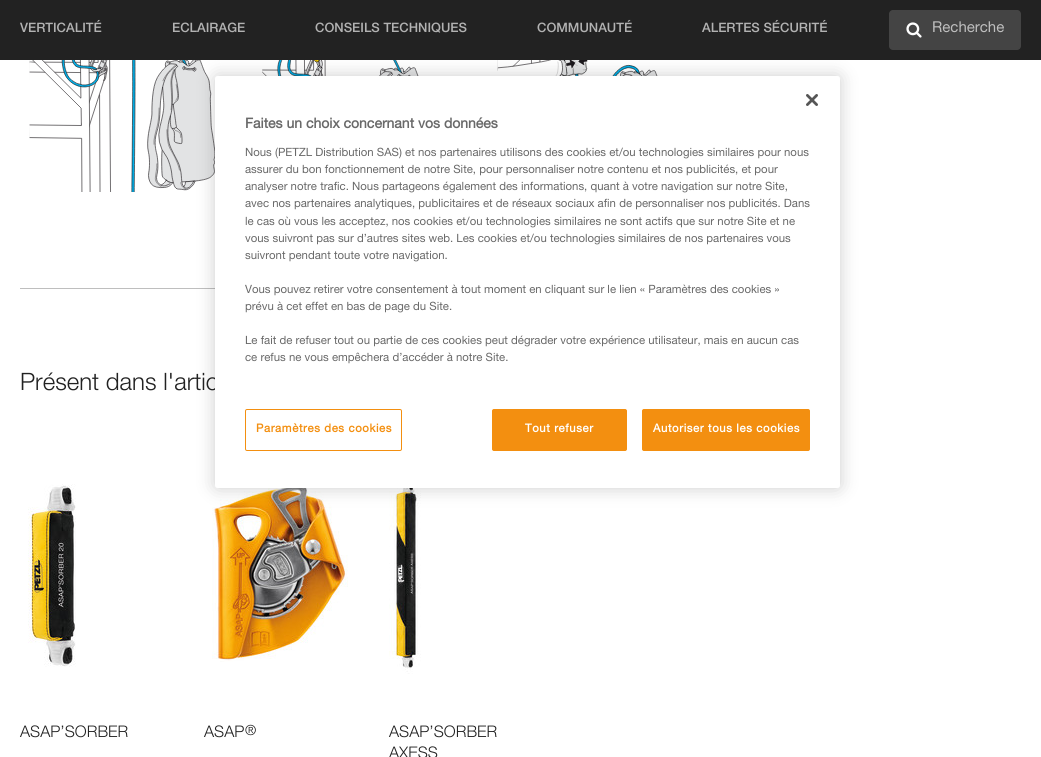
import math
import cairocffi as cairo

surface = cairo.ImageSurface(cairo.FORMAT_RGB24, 1041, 757)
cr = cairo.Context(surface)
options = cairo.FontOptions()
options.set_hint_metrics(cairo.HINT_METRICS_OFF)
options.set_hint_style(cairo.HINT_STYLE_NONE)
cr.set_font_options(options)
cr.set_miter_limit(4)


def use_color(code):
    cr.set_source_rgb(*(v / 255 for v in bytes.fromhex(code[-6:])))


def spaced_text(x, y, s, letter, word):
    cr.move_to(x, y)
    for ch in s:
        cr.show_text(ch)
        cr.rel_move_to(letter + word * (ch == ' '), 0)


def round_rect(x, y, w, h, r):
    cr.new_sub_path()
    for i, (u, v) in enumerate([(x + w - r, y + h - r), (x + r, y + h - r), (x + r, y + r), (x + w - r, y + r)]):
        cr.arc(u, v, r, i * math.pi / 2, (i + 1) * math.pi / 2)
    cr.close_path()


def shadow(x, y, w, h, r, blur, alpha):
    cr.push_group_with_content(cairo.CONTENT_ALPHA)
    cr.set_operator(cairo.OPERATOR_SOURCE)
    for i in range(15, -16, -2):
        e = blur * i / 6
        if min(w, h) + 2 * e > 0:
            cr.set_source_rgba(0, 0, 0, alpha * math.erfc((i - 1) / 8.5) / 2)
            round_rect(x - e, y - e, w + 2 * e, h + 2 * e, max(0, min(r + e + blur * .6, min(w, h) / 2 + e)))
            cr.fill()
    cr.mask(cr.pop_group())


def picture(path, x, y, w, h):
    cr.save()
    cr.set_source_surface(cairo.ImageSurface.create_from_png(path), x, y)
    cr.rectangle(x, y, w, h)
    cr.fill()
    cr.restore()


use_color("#ffffff")
cr.paint()
use_color("#222222")
cr.rectangle(0, 0, 1041, 60)
cr.fill()
cr.select_font_face("Helvetica Neue Medium")
cr.set_font_size(13)
use_color("#b2b2b2")
cr.move_to(20, 32)
cr.show_text("VERTICALITÉ")
cr.move_to(172, 32)
cr.show_text("ECLAIRAGE")
cr.move_to(315, 32)
cr.show_text("CONSEILS TECHNIQUES")
cr.move_to(537, 32)
cr.show_text("COMMUNAUTÉ")
cr.move_to(702, 32)
cr.show_text("ALERTES SÉCURITÉ")
use_color("#444444")
round_rect(889, 10, 132, 40, 4)
cr.fill()
picture("img1.png", 906, 22, 16, 16)
cr.select_font_face("Helvetica Neue")
cr.set_font_size(15)
use_color("#bebebe")
cr.move_to(932, 32)
cr.show_text("Recherche")
picture("img2.png", 29, 60, 186, 132)
picture("img3.png", 262, 60, 157, 16)
picture("img4.png", 497, 60, 161, 16)
cr.rectangle(20, 288, 195, 1)
cr.fill()
cr.select_font_face("Helvetica Neue Light")
cr.set_font_size(24)
use_color("#222222")
cr.move_to(20, 390)
cr.show_text("Présent dans l'artic")
picture("img5.png", 28, 484, 48, 183)
cr.set_font_size(16)
cr.move_to(20, 737)
cr.show_text("ASAP’SORBER")
picture("img6.png", 212, 483, 136, 179)
cr.move_to(204, 737)
cr.show_text("ASAP")
cr.set_font_size(14)
cr.move_to(245, 735)
cr.show_text("®")
picture("img7.png", 389, 488, 32, 186)
cr.set_font_size(16)
cr.move_to(389, 737)
cr.show_text("ASAP’SORBER")
cr.move_to(389, 758)
cr.show_text("AXESS")
use_color("#000000")
shadow(215, 76, 625, 412, 2.5, 9, 0.2)
use_color("#ffffff")
round_rect(215, 76, 625, 412, 2.5)
cr.fill()
picture("img8.png", 806, 94, 12, 12)
cr.select_font_face("Helvetica Neue", cairo.FONT_SLANT_NORMAL, cairo.FONT_WEIGHT_BOLD)
cr.set_font_size(14)
use_color("#696969")
cr.move_to(245, 128)
cr.show_text("Faites un choix concernant vos données")
cr.select_font_face("Helvetica Neue")
cr.set_font_size(11.4)
cr.move_to(245, 156)
cr.show_text("Nous (PETZL Distribution SAS) et nos partenaires utilisons des cookies et/ou technologies similaires pour nous")
cr.move_to(245, 173)
cr.show_text("assurer du bon fonctionnement de notre Site, pour personnaliser notre contenu et nos publicités, et pour")
cr.move_to(245, 190)
cr.show_text("analyser notre trafic. Nous partageons également des informations, quant à votre navigation sur notre Site,")
cr.move_to(245, 207)
cr.show_text("avec nos partenaires analytiques, publicitaires et de réseaux sociaux afin de personnaliser nos publicités. Dans")
cr.move_to(245, 225)
cr.show_text("le cas où vous les acceptez, nos cookies et/ou technologies similaires ne sont actifs que sur notre Site et ne")
cr.move_to(245, 242)
cr.show_text("vous suivront pas sur d’autres sites web. Les cookies et/ou technologies similaires de nos partenaires vous")
cr.move_to(245, 259)
cr.show_text("suivront pendant toute votre navigation.")
cr.move_to(245, 293)
cr.show_text("Vous pouvez retirer votre consentement à tout moment en cliquant sur le lien « Paramètres des cookies »")
cr.move_to(245, 310)
cr.show_text("prévu à cet effet en bas de page du Site.")
cr.move_to(245, 344)
cr.show_text("Le fait de refuser tout ou partie de ces cookies peut dégrader votre expérience utilisateur, mais en aucun cas")
cr.move_to(245, 361)
cr.show_text("ce refus ne vous empêchera d’accéder à notre Site.")
round_rect(245.5, 409.5, 156, 41, 1.5)
use_color("#f38f10")
cr.set_line_width(1)
cr.stroke()
cr.select_font_face("Helvetica Neue", cairo.FONT_SLANT_NORMAL, cairo.FONT_WEIGHT_BOLD)
spaced_text(256, 432, "Paramètres des cookies", 0.6, 0)
round_rect(492.5, 409.5, 134, 41, 1.5)
cr.fill_preserve()
cr.stroke()
use_color("#ffffff")
spaced_text(525, 432, "Tout refuser", 0.6, 0)
use_color("#f38f10")
round_rect(642.5, 409.5, 167, 41, 1.5)
cr.fill_preserve()
cr.stroke()
use_color("#ffffff")
spaced_text(653, 432, "Autoriser tous les cookies", 0.6, 0)
surface.write_to_png("result.png")
